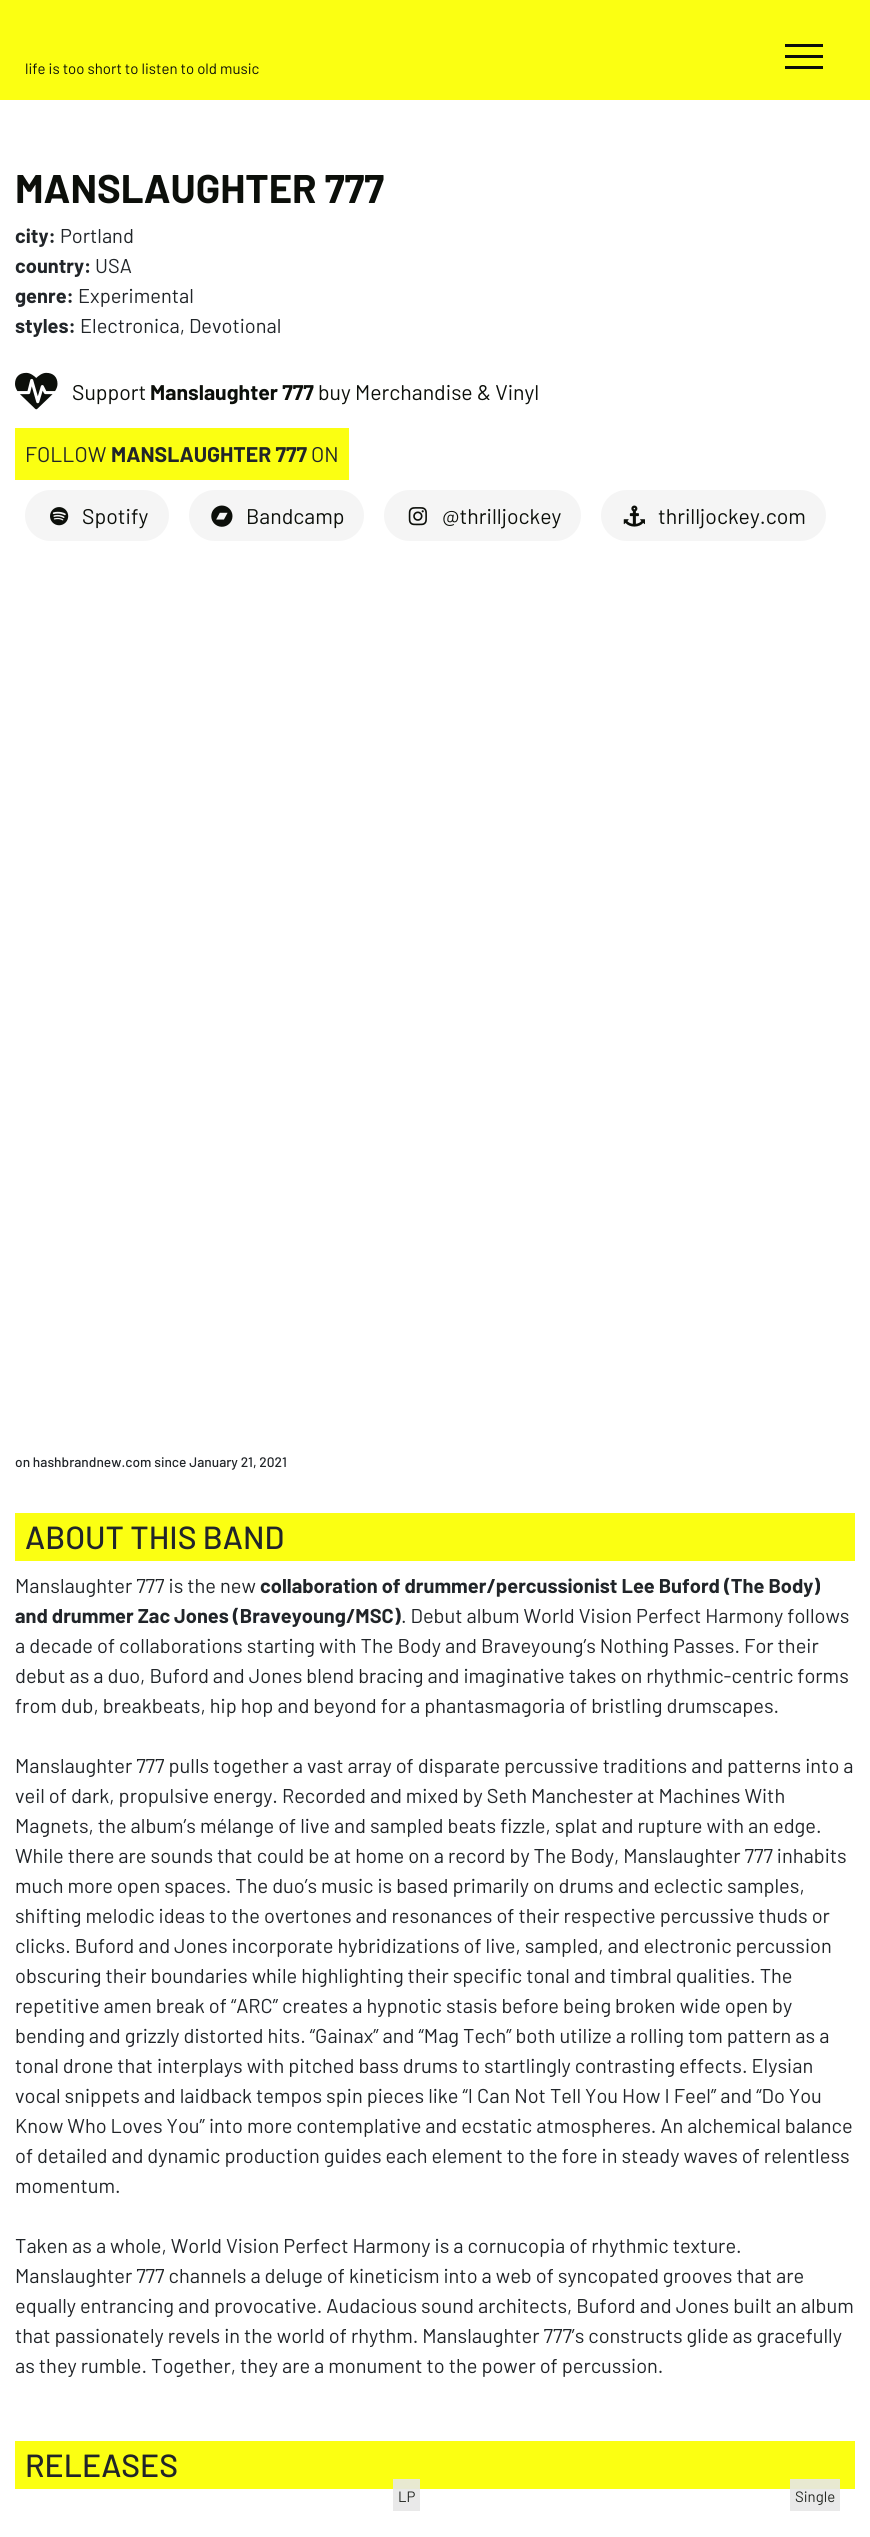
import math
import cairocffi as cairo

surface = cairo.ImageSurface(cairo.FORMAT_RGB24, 870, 2537)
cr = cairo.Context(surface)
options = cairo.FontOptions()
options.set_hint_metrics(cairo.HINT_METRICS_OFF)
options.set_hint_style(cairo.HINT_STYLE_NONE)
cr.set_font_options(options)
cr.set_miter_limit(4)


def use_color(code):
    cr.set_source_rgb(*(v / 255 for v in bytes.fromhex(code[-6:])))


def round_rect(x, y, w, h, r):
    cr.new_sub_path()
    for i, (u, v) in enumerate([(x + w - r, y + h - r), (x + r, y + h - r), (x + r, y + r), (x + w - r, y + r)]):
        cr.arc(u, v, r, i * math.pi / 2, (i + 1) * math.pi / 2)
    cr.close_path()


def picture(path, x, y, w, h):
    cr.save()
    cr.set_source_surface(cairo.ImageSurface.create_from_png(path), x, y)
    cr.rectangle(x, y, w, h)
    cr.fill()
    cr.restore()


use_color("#ffffff")
cr.paint()
use_color("#e9e9e9")
cr.rectangle(790, 2489, 50, 22)
cr.fill()
cr.rectangle(393, 2489, 27, 22)
cr.fill()
use_color("#fbff12")
cr.rectangle(0, 0, 870, 100)
cr.fill()
cr.select_font_face("Barlow")
cr.set_font_size(15)
use_color("#0c0f0a")
cr.move_to(25, 74)
cr.show_text("life is too short to listen to old music")
cr.rectangle(785, 55, 38, 3)
cr.fill()
cr.rectangle(785, 44, 38, 3)
cr.fill()
cr.rectangle(785, 66, 38, 3)
cr.fill()
cr.select_font_face("Barlow", cairo.FONT_SLANT_NORMAL, cairo.FONT_WEIGHT_BOLD)
cr.set_font_size(40)
cr.move_to(15, 203)
cr.show_text("MANSLAUGHTER 777")
cr.set_font_size(20)
use_color("#212529")
cr.move_to(15, 243)
cr.show_text("city:")
cr.select_font_face("Barlow")
cr.move_to(60, 243)
cr.show_text("Portland")
cr.select_font_face("Barlow", cairo.FONT_SLANT_NORMAL, cairo.FONT_WEIGHT_BOLD)
cr.move_to(15, 273)
cr.show_text("country:")
cr.select_font_face("Barlow")
cr.move_to(95, 273)
cr.show_text("USA")
cr.select_font_face("Barlow", cairo.FONT_SLANT_NORMAL, cairo.FONT_WEIGHT_BOLD)
cr.move_to(15, 303)
cr.show_text("genre:")
cr.select_font_face("Barlow")
cr.move_to(78, 303)
cr.show_text("Experimental")
cr.select_font_face("Barlow", cairo.FONT_SLANT_NORMAL, cairo.FONT_WEIGHT_BOLD)
cr.move_to(15, 333)
cr.show_text("styles:")
cr.select_font_face("Barlow")
cr.move_to(80, 333)
cr.show_text("Electronica, Devotional")
picture("img1.png", 15, 372, 43, 38)
cr.set_font_size(21.25)
use_color("#0c0f0a")
cr.move_to(72, 400)
cr.show_text("Support")
cr.select_font_face("Barlow", cairo.FONT_SLANT_NORMAL, cairo.FONT_WEIGHT_BOLD)
cr.move_to(150, 400)
cr.show_text("Manslaughter 777")
cr.select_font_face("Barlow")
cr.move_to(318, 400)
cr.show_text("buy Merchandise & Vinyl")
use_color("#fbff12")
cr.rectangle(15, 428, 334, 52)
cr.fill()
use_color("#212529")
cr.move_to(25, 462)
cr.show_text("FOLLOW")
cr.select_font_face("Barlow", cairo.FONT_SLANT_NORMAL, cairo.FONT_WEIGHT_BOLD)
cr.move_to(111, 462)
cr.show_text("MANSLAUGHTER 777")
cr.select_font_face("Barlow")
cr.move_to(311, 462)
cr.show_text("ON")
use_color("#f5f5f5")
round_rect(25, 490, 144, 51, 25.5)
cr.fill()
picture("img2.png", 50, 507, 19, 19)
use_color("#0c0f0a")
cr.move_to(82, 524)
cr.show_text("Spotify")
use_color("#f5f5f5")
round_rect(189, 490, 175, 51, 25.5)
cr.fill()
picture("img3.png", 211, 505, 22, 22)
use_color("#0c0f0a")
cr.move_to(246, 524)
cr.show_text("Bandcamp")
use_color("#f5f5f5")
round_rect(384, 490, 197, 51, 25.5)
cr.fill()
picture("img4.png", 408, 507, 19, 19)
use_color("#0c0f0a")
cr.move_to(442, 524)
cr.show_text("@thrilljockey")
use_color("#f5f5f5")
round_rect(601, 490, 225, 51, 25.5)
cr.fill()
picture("img5.png", 623, 505, 22, 22)
use_color("#0c0f0a")
cr.move_to(658, 524)
cr.show_text("thrilljockey.com")
cr.select_font_face("Barlow Medium")
cr.set_font_size(13.75)
use_color("#212529")
cr.move_to(15, 1467)
cr.show_text("on hashbrandnew.com since January 21, 2021")
use_color("#fbff12")
cr.rectangle(15, 1513, 840, 48)
cr.fill()
cr.set_font_size(32)
use_color("#212529")
cr.move_to(25, 1549)
cr.show_text("ABOUT THIS BAND")
cr.select_font_face("Barlow")
cr.set_font_size(20)
cr.move_to(15, 1593)
cr.show_text("Manslaughter 777 is the new")
cr.select_font_face("Barlow", cairo.FONT_SLANT_NORMAL, cairo.FONT_WEIGHT_BOLD)
cr.move_to(260, 1593)
cr.show_text("collaboration of drummer/percussionist Lee Buford (The Body)")
cr.move_to(15, 1623)
cr.show_text("and drummer Zac Jones (Braveyoung/MSC)")
cr.select_font_face("Barlow")
cr.move_to(401, 1623)
cr.show_text(". Debut album World Vision Perfect Harmony follows")
cr.move_to(15, 1653)
cr.show_text("a decade of collaborations starting with The Body and Braveyoung’s Nothing Passes. For their")
cr.move_to(15, 1683)
cr.show_text("debut as a duo, Buford and Jones blend bracing and imaginative takes on rhythmic-centric forms")
cr.move_to(15, 1713)
cr.show_text("from dub, breakbeats, hip hop and beyond for a phantasmagoria of bristling drumscapes.")
cr.move_to(15, 1773)
cr.show_text("Manslaughter 777 pulls together a vast array of disparate percussive traditions and patterns into a")
cr.move_to(15, 1803)
cr.show_text("veil of dark, propulsive energy. Recorded and mixed by Seth Manchester at Machines With")
cr.move_to(15, 1833)
cr.show_text("Magnets, the album’s mélange of live and sampled beats fizzle, splat and rupture with an edge.")
cr.move_to(15, 1863)
cr.show_text("While there are sounds that could be at home on a record by The Body, Manslaughter 777 inhabits")
cr.move_to(15, 1893)
cr.show_text("much more open spaces. The duo’s music is based primarily on drums and eclectic samples,")
cr.move_to(15, 1923)
cr.show_text("shifting melodic ideas to the overtones and resonances of their respective percussive thuds or")
cr.move_to(15, 1953)
cr.show_text("clicks. Buford and Jones incorporate hybridizations of live, sampled, and electronic percussion")
cr.move_to(15, 1983)
cr.show_text("obscuring their boundaries while highlighting their specific tonal and timbral qualities. The")
cr.move_to(15, 2013)
cr.show_text("repetitive amen break of “ARC” creates a hypnotic stasis before being broken wide open by")
cr.move_to(15, 2043)
cr.show_text("bending and grizzly distorted hits. “Gainax” and “Mag Tech” both utilize a rolling tom pattern as a")
cr.move_to(15, 2073)
cr.show_text("tonal drone that interplays with pitched bass drums to startlingly contrasting effects. Elysian")
cr.move_to(15, 2103)
cr.show_text("vocal snippets and laidback tempos spin pieces like “I Can Not Tell You How I Feel” and “Do You")
cr.move_to(15, 2133)
cr.show_text("Know Who Loves You” into more contemplative and ecstatic atmospheres. An alchemical balance")
cr.move_to(15, 2163)
cr.show_text("of detailed and dynamic production guides each element to the fore in steady waves of relentless")
cr.move_to(15, 2193)
cr.show_text("momentum.")
cr.move_to(15, 2253)
cr.show_text("Taken as a whole, World Vision Perfect Harmony is a cornucopia of rhythmic texture.")
cr.move_to(15, 2283)
cr.show_text("Manslaughter 777 channels a deluge of kineticism into a web of syncopated grooves that are")
cr.move_to(15, 2313)
cr.show_text("equally entrancing and provocative. Audacious sound architects, Buford and Jones built an album")
cr.move_to(15, 2343)
cr.show_text("that passionately revels in the world of rhythm. Manslaughter 777’s constructs glide as gracefully")
cr.move_to(15, 2373)
cr.show_text("as they rumble. Together, they are a monument to the power of percussion.")
use_color("#fbff12")
cr.rectangle(15, 2441, 840, 48)
cr.fill()
use_color("#e8e9d1")
cr.rectangle(790, 2479, 50, 10)
cr.fill()
cr.rectangle(393, 2479, 27, 10)
cr.fill()
cr.select_font_face("Barlow Medium")
cr.set_font_size(32)
use_color("#212529")
cr.move_to(25, 2477)
cr.show_text("RELEASES")
cr.select_font_face("Barlow")
cr.set_font_size(15)
use_color("#242723")
cr.move_to(398, 2502)
cr.show_text("LP")
cr.move_to(795, 2502)
cr.show_text("Single")
surface.write_to_png("result.png")
